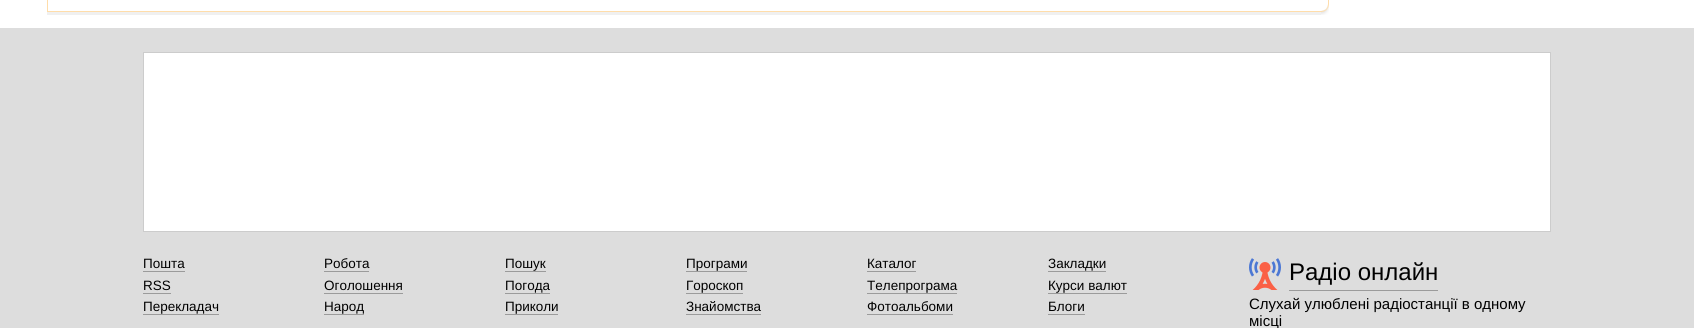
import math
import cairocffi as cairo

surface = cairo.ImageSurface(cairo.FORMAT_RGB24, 1694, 328)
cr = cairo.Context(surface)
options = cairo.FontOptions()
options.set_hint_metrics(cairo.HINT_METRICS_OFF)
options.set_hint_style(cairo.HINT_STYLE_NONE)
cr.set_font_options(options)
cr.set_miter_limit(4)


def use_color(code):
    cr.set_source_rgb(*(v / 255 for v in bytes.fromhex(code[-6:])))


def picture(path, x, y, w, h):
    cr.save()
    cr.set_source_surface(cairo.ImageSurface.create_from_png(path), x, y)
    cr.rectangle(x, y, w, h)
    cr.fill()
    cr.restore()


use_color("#ffffff")
cr.paint()
use_color("#f0f0f0")
cr.rectangle(47, 12, 1282, 3)
cr.fill()
cr.rectangle(47.5, -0.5, 1281, 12)
use_color("#ffddaa")
cr.set_line_width(1)
cr.stroke()
picture("img1.png", 1321, 4, 8, 11)
use_color("#dddddd")
cr.rectangle(0, 28, 1694, 300)
cr.fill()
use_color("#ffffff")
cr.rectangle(143.5, 52.5, 1407, 179)
cr.fill_preserve()
use_color("#cccccc")
cr.stroke()
cr.select_font_face("Liberation Sans")
cr.set_font_size(13.5)
use_color("#000000")
cr.move_to(143, 268)
cr.show_text("Пошта")
use_color("#9b9b9b")
cr.rectangle(143, 271, 42, 1)
cr.fill()
use_color("#000000")
cr.move_to(324, 268)
cr.show_text("Робота")
use_color("#9b9b9b")
cr.rectangle(324, 271, 45, 1)
cr.fill()
use_color("#000000")
cr.move_to(505, 268)
cr.show_text("Пошук")
use_color("#9b9b9b")
cr.rectangle(505, 271, 41, 1)
cr.fill()
use_color("#000000")
cr.move_to(686, 268)
cr.show_text("Програми")
use_color("#9b9b9b")
cr.rectangle(686, 271, 61, 1)
cr.fill()
use_color("#000000")
cr.move_to(867, 268)
cr.show_text("Каталог")
use_color("#9b9b9b")
cr.rectangle(867, 271, 49, 1)
cr.fill()
use_color("#000000")
cr.move_to(1048, 268)
cr.show_text("Закладки")
use_color("#9b9b9b")
cr.rectangle(1048, 271, 58, 1)
cr.fill()
use_color("#000000")
cr.move_to(143, 290)
cr.show_text("RSS")
use_color("#9b9b9b")
cr.rectangle(143, 293, 28, 1)
cr.fill()
use_color("#000000")
cr.move_to(324, 290)
cr.show_text("Оголошення")
use_color("#9b9b9b")
cr.rectangle(324, 293, 79, 1)
cr.fill()
use_color("#000000")
cr.move_to(505, 290)
cr.show_text("Погода")
use_color("#9b9b9b")
cr.rectangle(505, 293, 45, 1)
cr.fill()
use_color("#000000")
cr.move_to(686, 290)
cr.show_text("Гороскоп")
use_color("#9b9b9b")
cr.rectangle(686, 293, 57, 1)
cr.fill()
use_color("#000000")
cr.move_to(867, 290)
cr.show_text("Телепрограма")
use_color("#9b9b9b")
cr.rectangle(867, 293, 90, 1)
cr.fill()
use_color("#000000")
cr.move_to(1048, 290)
cr.show_text("Курси валют")
use_color("#9b9b9b")
cr.rectangle(1048, 293, 79, 1)
cr.fill()
use_color("#000000")
cr.move_to(143, 311)
cr.show_text("Перекладач")
use_color("#9b9b9b")
cr.rectangle(143, 314, 76, 1)
cr.fill()
use_color("#000000")
cr.move_to(324, 311)
cr.show_text("Народ")
use_color("#9b9b9b")
cr.rectangle(324, 314, 40, 1)
cr.fill()
use_color("#000000")
cr.move_to(505, 311)
cr.show_text("Приколи")
use_color("#9b9b9b")
cr.rectangle(505, 314, 53, 1)
cr.fill()
use_color("#000000")
cr.move_to(686, 311)
cr.show_text("Знайомства")
use_color("#9b9b9b")
cr.rectangle(686, 314, 75, 1)
cr.fill()
use_color("#000000")
cr.move_to(867, 311)
cr.show_text("Фотоальбоми")
use_color("#9b9b9b")
cr.rectangle(867, 314, 86, 1)
cr.fill()
use_color("#000000")
cr.move_to(1048, 311)
cr.show_text("Блоги")
use_color("#9b9b9b")
cr.rectangle(1048, 314, 37, 1)
cr.fill()
cr.rectangle(1289, 290, 149, 1)
cr.fill()
picture("img2.png", 1249, 258, 32, 32)
cr.set_font_size(24)
use_color("#000000")
cr.move_to(1289, 280)
cr.show_text("Радіо онлайн")
cr.set_font_size(15)
cr.move_to(1249, 309)
cr.show_text("Слухай улюблені радіостанції в одному")
cr.move_to(1249, 326)
cr.show_text("місці")
surface.write_to_png("result.png")
